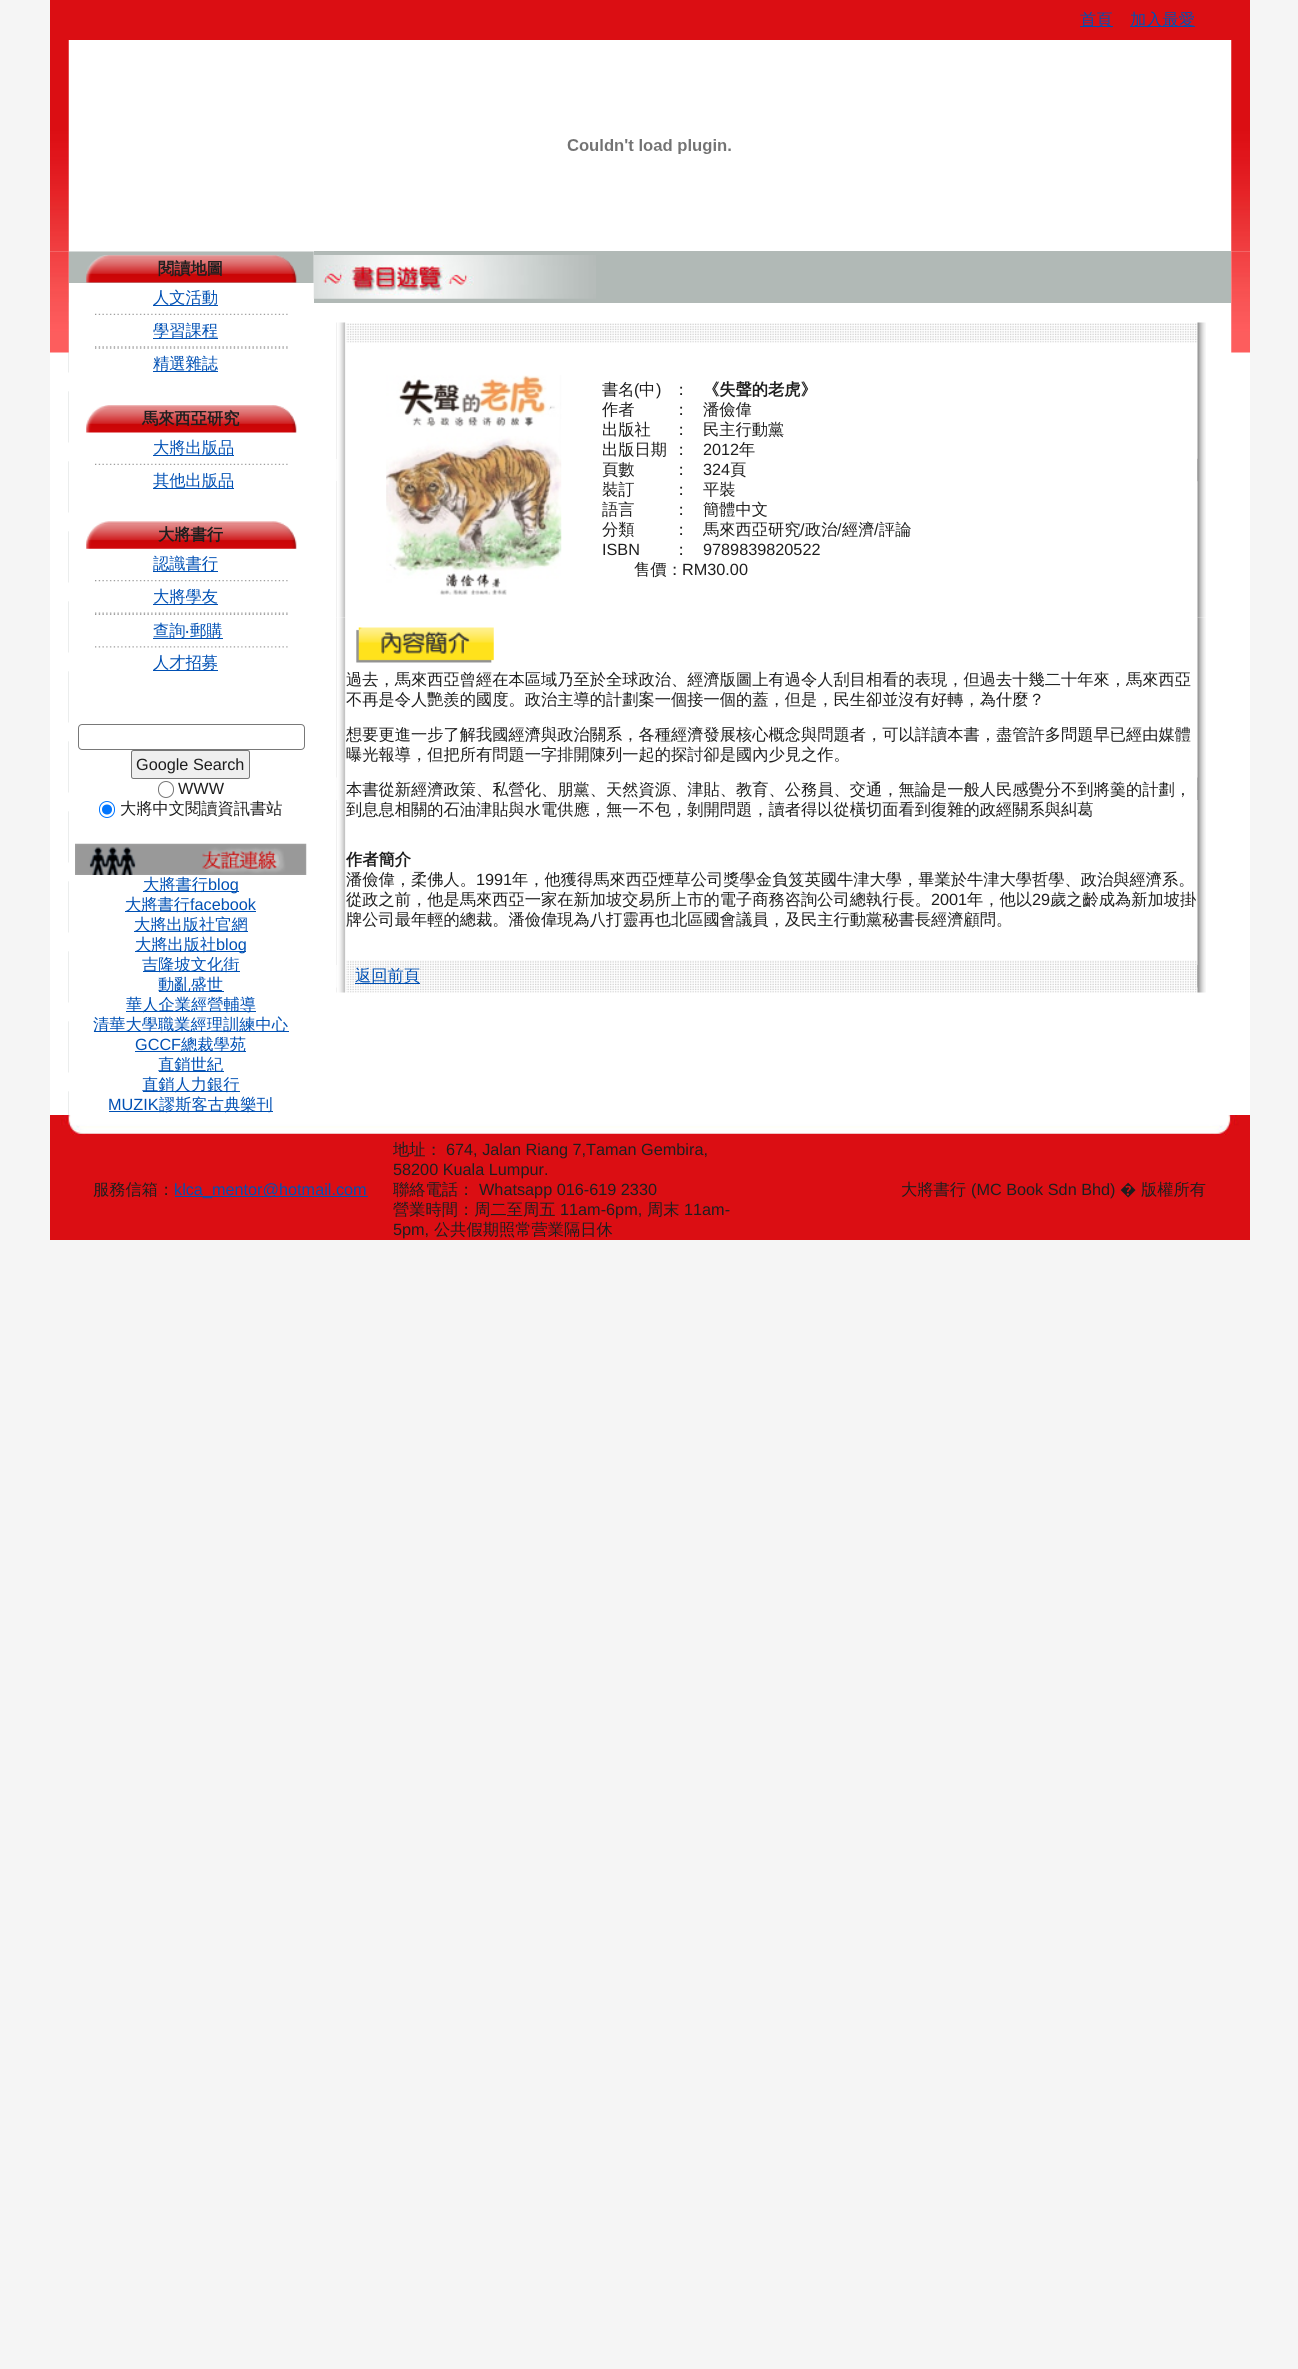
import math
import cairocffi as cairo

surface = cairo.ImageSurface(cairo.FORMAT_RGB24, 1298, 2369)
cr = cairo.Context(surface)
options = cairo.FontOptions()
options.set_hint_metrics(cairo.HINT_METRICS_OFF)
options.set_hint_style(cairo.HINT_STYLE_NONE)
cr.set_font_options(options)
cr.set_miter_limit(4)


def use_color(code):
    cr.set_source_rgb(*(v / 255 for v in bytes.fromhex(code[-6:])))


def round_rect(x, y, w, h, r):
    cr.new_sub_path()
    for i, (u, v) in enumerate([(x + w - r, y + h - r), (x + r, y + h - r), (x + r, y + r), (x + w - r, y + r)]):
        cr.arc(u, v, r, i * math.pi / 2, (i + 1) * math.pi / 2)
    cr.close_path()


def picture(path, x, y, w, h):
    cr.save()
    cr.set_source_surface(cairo.ImageSurface.create_from_png(path), x, y)
    cr.rectangle(x, y, w, h)
    cr.fill()
    cr.restore()


use_color("#f5f5f5")
cr.paint()
use_color("#ffffff")
cr.rectangle(50, 40, 1200, 1075)
cr.fill()
use_color("#db0e13")
cr.rectangle(50, 0, 1200, 40)
cr.fill()
use_color("#0050b4")
cr.rectangle(1080, 26, 33, 1)
cr.fill()
cr.select_font_face("WenQuanYi Zen Hei Medium")
cr.set_font_size(16.25)
cr.move_to(1080, 25)
cr.show_text("首頁")
cr.rectangle(1130, 26, 65, 1)
cr.fill()
cr.move_to(1130, 25)
cr.show_text("加入最愛")
picture("img5.png", 68, 251, 246, 864)
picture("img1.png", 50, 40, 19, 212)
picture("img2.png", 567, 139, 164, 15)
picture("img3.png", 1231, 40, 19, 212)
picture("img4.png", 50, 251, 19, 102)
picture("img6.png", 86, 255, 211, 28)
cr.select_font_face("WenQuanYi Zen Hei", cairo.FONT_SLANT_NORMAL, cairo.FONT_WEIGHT_BOLD)
use_color("#1e1e1e")
cr.move_to(158, 274)
cr.show_text("閱讀地圖")
use_color("#ffffff")
cr.rectangle(69, 283, 245, 90)
cr.fill()
use_color("#0050b4")
cr.rectangle(153, 305, 65, 1)
cr.fill()
cr.select_font_face("WenQuanYi Zen Hei Medium")
cr.move_to(153, 303)
cr.show_text("人文活動")
picture("img7.png", 95, 313, 193, 2)
cr.rectangle(153, 338, 65, 1)
cr.fill()
cr.move_to(153, 336)
cr.show_text("學習課程")
picture("img8.png", 95, 346, 193, 2)
picture("img9.png", 95, 347, 193, 2)
cr.rectangle(153, 371, 65, 1)
cr.fill()
cr.move_to(153, 369)
cr.show_text("精選雜誌")
use_color("#ffffff")
cr.rectangle(69, 391, 245, 122)
cr.fill()
picture("img10.png", 86, 405, 211, 28)
cr.select_font_face("WenQuanYi Zen Hei", cairo.FONT_SLANT_NORMAL, cairo.FONT_WEIGHT_BOLD)
use_color("#1e1e1e")
cr.move_to(142, 424)
cr.show_text("馬來西亞研究")
use_color("#0050b4")
cr.rectangle(153, 455, 81, 1)
cr.fill()
cr.select_font_face("WenQuanYi Zen Hei Medium")
cr.move_to(153, 453)
cr.show_text("大將出版品")
picture("img7.png", 95, 463, 193, 2)
cr.rectangle(153, 488, 81, 1)
cr.fill()
cr.move_to(153, 486)
cr.show_text("其他出版品")
use_color("#ffffff")
cr.rectangle(69, 531, 245, 584)
cr.fill()
picture("img11.png", 86, 521, 211, 28)
cr.select_font_face("WenQuanYi Zen Hei", cairo.FONT_SLANT_NORMAL, cairo.FONT_WEIGHT_BOLD)
use_color("#1e1e1e")
cr.move_to(158, 540)
cr.show_text("大將書行")
use_color("#0050b4")
cr.rectangle(153, 571, 65, 1)
cr.fill()
cr.select_font_face("WenQuanYi Zen Hei Medium")
cr.move_to(153, 569)
cr.show_text("認識書行")
picture("img12.png", 95, 580, 193, 2)
cr.rectangle(153, 604, 65, 1)
cr.fill()
cr.move_to(153, 602)
cr.show_text("大將學友")
picture("img13.png", 95, 612, 193, 2)
picture("img14.png", 95, 613, 193, 2)
cr.rectangle(153, 638, 70, 1)
cr.fill()
cr.move_to(153, 636)
cr.show_text("查詢")
cr.select_font_face("Noto Sans")
cr.move_to(185, 636)
cr.show_text("‧")
cr.select_font_face("WenQuanYi Zen Hei Medium")
cr.move_to(190, 636)
cr.show_text("郵購")
picture("img8.png", 95, 646, 193, 2)
cr.rectangle(153, 670, 65, 1)
cr.fill()
cr.move_to(153, 668)
cr.show_text("人才招募")
round_rect(78.5, 724.5, 226, 25, 3.5)
use_color("#787878")
cr.set_line_width(1)
cr.stroke()
use_color("#efefef")
round_rect(131.5, 750.5, 118, 28, 2)
cr.fill_preserve()
use_color("#767676")
cr.stroke()
cr.select_font_face("Liberation Sans")
use_color("#1e1e1e")
cr.move_to(136, 770)
cr.show_text("Google Search")
round_rect(158.5, 781.5, 15, 16, 7.5)
use_color("#767676")
cr.stroke()
use_color("#1e1e1e")
cr.move_to(178, 794)
cr.show_text("WWW")
round_rect(99.5, 801.5, 15, 16, 7.5)
use_color("#0075ff")
cr.stroke()
cr.arc(107, 809.5, 5, 0, 2 * math.pi)
cr.fill()
cr.select_font_face("WenQuanYi Zen Hei Medium")
use_color("#1e1e1e")
cr.move_to(120, 814)
cr.show_text("大將中文閱讀資訊書站")
picture("img15.png", 75, 843, 232, 32)
use_color("#0050b4")
cr.rectangle(143, 891, 96, 1)
cr.fill()
cr.move_to(143, 890)
cr.show_text("大將書行")
cr.select_font_face("Liberation Sans")
cr.move_to(208, 890)
cr.show_text("blog")
cr.rectangle(125, 911, 131, 1)
cr.fill()
cr.select_font_face("WenQuanYi Zen Hei Medium")
cr.move_to(125, 910)
cr.show_text("大將書行")
cr.select_font_face("Liberation Sans")
cr.move_to(190, 910)
cr.show_text("facebook")
cr.rectangle(134, 931, 114, 1)
cr.fill()
cr.select_font_face("WenQuanYi Zen Hei Medium")
cr.move_to(134, 930)
cr.show_text("大將出版社官網")
cr.rectangle(135, 951, 111, 1)
cr.fill()
cr.move_to(135, 950)
cr.show_text("大將出版社")
cr.select_font_face("Liberation Sans")
cr.move_to(216, 950)
cr.show_text("blog")
cr.rectangle(143, 971, 97, 1)
cr.fill()
cr.select_font_face("WenQuanYi Zen Hei Medium")
cr.move_to(142, 970)
cr.show_text("吉隆坡文化街")
cr.rectangle(159, 991, 65, 1)
cr.fill()
cr.move_to(158, 990)
cr.show_text("動亂盛世")
cr.rectangle(126, 1011, 130, 1)
cr.fill()
cr.move_to(126, 1010)
cr.show_text("華人企業經營輔導")
cr.rectangle(94, 1031, 195, 1)
cr.fill()
cr.move_to(93, 1030)
cr.show_text("清華大學職業經理訓練中心")
cr.select_font_face("Liberation Sans")
cr.move_to(135, 1050)
cr.show_text("GCCF")
cr.rectangle(135, 1051, 111, 1)
cr.fill()
cr.select_font_face("WenQuanYi Zen Hei Medium")
cr.move_to(181, 1050)
cr.show_text("總裁學苑")
cr.rectangle(159, 1071, 65, 1)
cr.fill()
cr.move_to(158, 1070)
cr.show_text("直銷世紀")
cr.rectangle(143, 1091, 97, 1)
cr.fill()
cr.move_to(142, 1090)
cr.show_text("直銷人力銀行")
cr.select_font_face("Liberation Sans")
cr.move_to(108, 1110)
cr.show_text("MUZIK")
cr.rectangle(109, 1111, 164, 1)
cr.fill()
cr.select_font_face("WenQuanYi Zen Hei Medium")
cr.move_to(159, 1110)
cr.show_text("謬斯客古典樂刊")
use_color("#b1b9b6")
cr.rectangle(314, 251, 917, 52)
cr.fill()
picture("img16.png", 313, 255, 283, 44)
picture("img17.png", 336, 322, 10, 296)
use_color("#fbfbfb")
cr.rectangle(336, 459, 1, 22)
cr.fill()
picture("img18.png", 346, 323, 852, 20)
picture("img19.png", 386, 375, 176, 220)
use_color("#1e1e1e")
cr.move_to(602, 395)
cr.show_text("書名")
cr.select_font_face("Liberation Sans")
cr.move_to(634, 395)
cr.show_text("(")
cr.select_font_face("WenQuanYi Zen Hei Medium")
cr.move_to(639, 395)
cr.show_text("中")
cr.select_font_face("Liberation Sans")
cr.move_to(656, 395)
cr.show_text(")")
cr.select_font_face("WenQuanYi Zen Hei Medium")
cr.move_to(673, 395)
cr.show_text("：")
cr.select_font_face("WenQuanYi Zen Hei", cairo.FONT_SLANT_NORMAL, cairo.FONT_WEIGHT_BOLD)
cr.move_to(703, 395)
cr.show_text("《失聲的老虎》")
cr.select_font_face("WenQuanYi Zen Hei Medium")
cr.move_to(602, 415)
cr.show_text("作者")
cr.move_to(673, 415)
cr.show_text("：")
cr.move_to(703, 415)
cr.show_text("潘儉偉")
cr.move_to(602, 435)
cr.show_text("出版社")
cr.move_to(673, 435)
cr.show_text("：")
cr.move_to(703, 435)
cr.show_text("民主行動黨")
cr.move_to(602, 455)
cr.show_text("出版日期")
cr.move_to(673, 455)
cr.show_text("：")
cr.select_font_face("Liberation Sans")
cr.move_to(703, 455)
cr.show_text("2012")
cr.select_font_face("WenQuanYi Zen Hei Medium")
cr.move_to(739, 455)
cr.show_text("年")
cr.move_to(602, 475)
cr.show_text("頁數")
cr.move_to(673, 475)
cr.show_text("：")
cr.select_font_face("Liberation Sans")
cr.move_to(703, 475)
cr.show_text("324")
cr.select_font_face("WenQuanYi Zen Hei Medium")
cr.move_to(730, 475)
cr.show_text("頁")
cr.move_to(602, 495)
cr.show_text("裝訂")
cr.move_to(673, 495)
cr.show_text("：")
cr.move_to(703, 495)
cr.show_text("平裝")
cr.move_to(602, 515)
cr.show_text("語言")
cr.move_to(673, 515)
cr.show_text("：")
cr.move_to(703, 515)
cr.show_text("簡體中文")
cr.move_to(602, 535)
cr.show_text("分類")
cr.move_to(673, 535)
cr.show_text("：")
cr.move_to(703, 535)
cr.show_text("馬來西亞研究")
cr.select_font_face("Liberation Sans")
cr.move_to(800, 535)
cr.show_text("/")
cr.select_font_face("WenQuanYi Zen Hei Medium")
cr.move_to(805, 535)
cr.show_text("政治")
cr.select_font_face("Liberation Sans")
cr.move_to(837, 535)
cr.show_text("/")
cr.select_font_face("WenQuanYi Zen Hei Medium")
cr.move_to(842, 535)
cr.show_text("經濟")
cr.select_font_face("Liberation Sans")
cr.move_to(874, 535)
cr.show_text("/")
cr.select_font_face("WenQuanYi Zen Hei Medium")
cr.move_to(879, 535)
cr.show_text("評論")
cr.select_font_face("Liberation Sans")
cr.move_to(602, 555)
cr.show_text("ISBN")
cr.select_font_face("WenQuanYi Zen Hei Medium")
cr.move_to(673, 555)
cr.show_text("：")
cr.select_font_face("Liberation Sans")
cr.move_to(703, 555)
cr.show_text("9789839820522")
cr.select_font_face("WenQuanYi Zen Hei Medium")
cr.move_to(634, 575)
cr.show_text("售價：")
cr.select_font_face("Liberation Sans")
cr.move_to(682, 575)
cr.show_text("RM30.00")
picture("img20.png", 1197, 322, 9, 296)
picture("img21.png", 1197, 458, 1, 24)
picture("img22.png", 336, 617, 10, 343)
picture("img23.png", 336, 777, 1, 23)
picture("img24.png", 356, 627, 138, 36)
cr.select_font_face("WenQuanYi Zen Hei Medium")
cr.move_to(346, 685)
cr.show_text("過去，馬來西亞曾經在本區域乃至於全球政治、經濟版圖上有過令人刮目相看的表現，但過去十幾二十年來，馬來西亞")
cr.move_to(346, 705)
cr.show_text("不再是令人艷羨的國度。政治主導的計劃案一個接一個的蓋，但是，民生卻並沒有好轉，為什麼？")
cr.move_to(346, 740)
cr.show_text("想要更進一步了解我國經濟與政治關系，各種經濟發展核心概念與問題者，可以詳讀本書，盡管許多問題早已經由媒體")
cr.move_to(346, 760)
cr.show_text("曝光報導，但把所有問題一字排開陳列一起的探討卻是國內少見之作。")
cr.move_to(346, 795)
cr.show_text("本書從新經濟政策、私營化、朋黨、天然資源、津貼、教育、公務員、交通，無論是一般人民感覺分不到將羹的計劃，")
cr.move_to(346, 815)
cr.show_text("到息息相關的石油津貼與水電供應，無一不包，剝開問題，讀者得以從橫切面看到復雜的政經關系與糾葛")
cr.select_font_face("WenQuanYi Zen Hei", cairo.FONT_SLANT_NORMAL, cairo.FONT_WEIGHT_BOLD)
cr.move_to(346, 865)
cr.show_text("作者簡介")
cr.select_font_face("WenQuanYi Zen Hei Medium")
cr.move_to(346, 885)
cr.show_text("潘儉偉，柔佛人。")
cr.select_font_face("Liberation Sans")
cr.move_to(476, 885)
cr.show_text("1991")
cr.select_font_face("WenQuanYi Zen Hei Medium")
cr.move_to(512, 885)
cr.show_text("年，他獲得馬來西亞煙草公司獎學金負笈英國牛津大學，畢業於牛津大學哲學、政治與經濟系。")
cr.move_to(346, 905)
cr.show_text("從政之前，他是馬來西亞一家在新加坡交易所上市的電子商務咨詢公司總執行長。")
cr.select_font_face("Liberation Sans")
cr.move_to(931, 905)
cr.show_text("2001")
cr.select_font_face("WenQuanYi Zen Hei Medium")
cr.move_to(967, 905)
cr.show_text("年，他以")
cr.select_font_face("Liberation Sans")
cr.move_to(1032, 905)
cr.show_text("29")
cr.select_font_face("WenQuanYi Zen Hei Medium")
cr.move_to(1050, 905)
cr.show_text("歲之齡成為新加坡掛")
cr.move_to(346, 925)
cr.show_text("牌公司最年輕的總裁。潘儉偉現為八打靈再也北區國會議員，及民主行動黨秘書長經濟顧問。")
picture("img25.png", 1197, 617, 9, 343)
picture("img26.png", 1197, 777, 1, 23)
picture("img27.png", 336, 960, 10, 33)
picture("img28.png", 336, 965, 1, 23)
picture("img29.png", 346, 960, 852, 33)
use_color("#0050b4")
cr.rectangle(355, 983, 65, 1)
cr.fill()
cr.move_to(355, 981)
cr.show_text("返回前頁")
picture("img30.png", 1197, 960, 9, 33)
picture("img31.png", 1197, 965, 1, 23)
picture("img32.png", 1231, 251, 19, 102)
use_color("#db0e13")
cr.rectangle(50, 1115, 1200, 125)
cr.fill()
picture("img33.png", 60, 1115, 1179, 20)
use_color("#1e1e1e")
cr.move_to(93, 1195)
cr.show_text("服務信箱：")
use_color("#0050b4")
cr.rectangle(175, 1196, 193, 1)
cr.fill()
cr.select_font_face("Liberation Sans")
cr.move_to(174, 1195)
cr.show_text("klca_mentor@hotmail.com")
cr.select_font_face("WenQuanYi Zen Hei Medium")
use_color("#1e1e1e")
cr.move_to(393, 1155)
cr.show_text("地址：")
cr.select_font_face("Liberation Sans")
cr.move_to(446, 1155)
cr.show_text("674, Jalan Riang 7,Taman Gembira,")
cr.move_to(393, 1175)
cr.show_text("58200 Kuala Lumpur.")
cr.select_font_face("WenQuanYi Zen Hei Medium")
cr.move_to(393, 1195)
cr.show_text("聯絡電話：")
cr.select_font_face("Liberation Sans")
cr.move_to(479, 1195)
cr.show_text("Whatsapp 016-619 2330")
cr.select_font_face("WenQuanYi Zen Hei Medium")
cr.move_to(393, 1215)
cr.show_text("營業時間：周二至周五")
cr.select_font_face("Liberation Sans")
cr.move_to(560, 1215)
cr.show_text("11am-6pm,")
cr.select_font_face("WenQuanYi Zen Hei Medium")
cr.move_to(647, 1215)
cr.show_text("周末")
cr.select_font_face("Liberation Sans")
cr.move_to(684, 1215)
cr.show_text("11am-")
cr.move_to(393, 1235)
cr.show_text("5pm,")
cr.select_font_face("WenQuanYi Zen Hei Medium")
cr.move_to(434, 1235)
cr.show_text("公共假期照常营業隔日休")
cr.move_to(901, 1195)
cr.show_text("大將書行")
cr.select_font_face("Liberation Sans")
cr.move_to(971, 1195)
cr.show_text("(MC Book Sdn Bhd)")
cr.select_font_face("Noto Sans")
cr.move_to(1120, 1195)
cr.show_text("�")
cr.select_font_face("WenQuanYi Zen Hei Medium")
cr.move_to(1141, 1195)
cr.show_text("版權所有")
surface.write_to_png("result.png")
